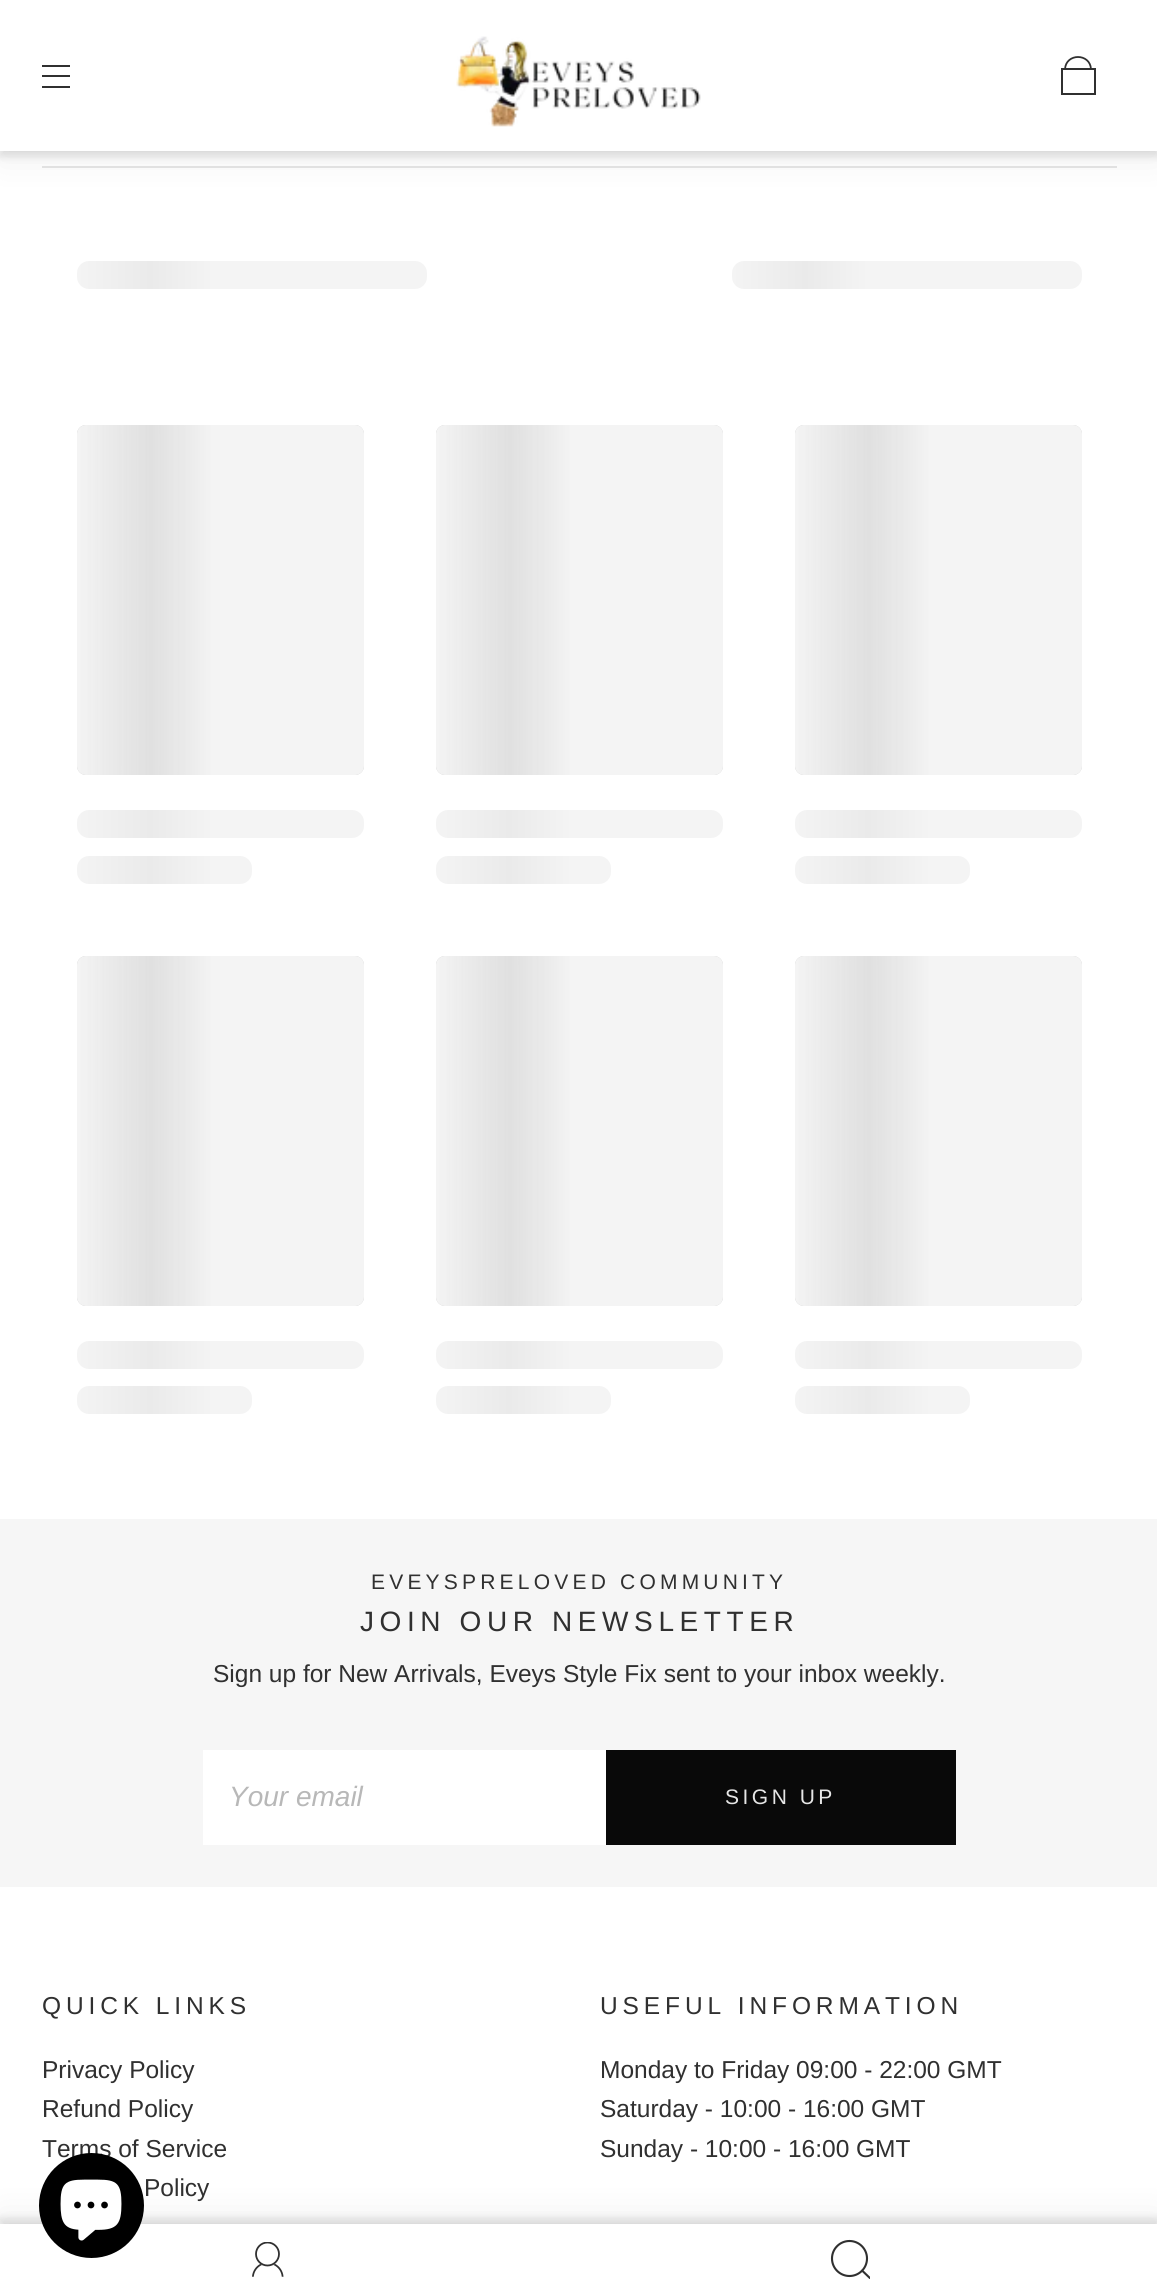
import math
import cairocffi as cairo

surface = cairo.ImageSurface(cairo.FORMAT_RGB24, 1157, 2293)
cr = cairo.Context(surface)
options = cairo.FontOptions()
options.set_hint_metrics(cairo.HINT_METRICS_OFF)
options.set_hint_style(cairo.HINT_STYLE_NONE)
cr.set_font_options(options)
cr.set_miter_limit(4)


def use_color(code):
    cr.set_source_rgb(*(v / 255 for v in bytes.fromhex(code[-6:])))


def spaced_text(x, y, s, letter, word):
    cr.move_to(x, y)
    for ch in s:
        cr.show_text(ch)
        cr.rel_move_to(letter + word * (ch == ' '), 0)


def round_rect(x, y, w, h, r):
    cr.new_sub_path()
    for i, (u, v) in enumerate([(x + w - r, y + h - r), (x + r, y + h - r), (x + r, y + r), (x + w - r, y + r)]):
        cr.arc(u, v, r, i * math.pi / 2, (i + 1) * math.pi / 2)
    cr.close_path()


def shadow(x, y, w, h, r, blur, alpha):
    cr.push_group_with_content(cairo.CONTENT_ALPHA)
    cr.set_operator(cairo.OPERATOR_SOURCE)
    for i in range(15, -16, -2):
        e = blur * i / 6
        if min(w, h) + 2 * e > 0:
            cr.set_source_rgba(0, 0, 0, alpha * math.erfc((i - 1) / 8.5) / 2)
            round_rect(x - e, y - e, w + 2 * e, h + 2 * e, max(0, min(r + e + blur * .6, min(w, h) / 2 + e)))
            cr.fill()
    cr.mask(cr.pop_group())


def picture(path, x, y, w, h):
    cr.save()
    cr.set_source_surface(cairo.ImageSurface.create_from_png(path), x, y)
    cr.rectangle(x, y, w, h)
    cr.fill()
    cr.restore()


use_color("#ffffff")
cr.paint()
use_color("#e6e6e6")
cr.rectangle(42, 166, 1075, 2)
cr.fill()
use_color("#000000")
shadow(0, 11, 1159, 150, 0, 17.5, 0.06)
shadow(0, 5, 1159, 151, 0, 4.5, 0.12)
use_color("#ffffff")
cr.rectangle(0, 0, 1157, 151)
cr.fill()
use_color("#303030")
cr.rectangle(42, 65, 28, 2)
cr.fill()
cr.rectangle(42, 75, 28, 2)
cr.fill()
cr.rectangle(42, 86, 28, 2)
cr.fill()
picture("img1.png", 456, 36, 245, 91)
cr.new_path()
cr.move_to(1065, 69)
cr.curve_to(1066, 53, 1090, 53, 1091, 69)
cr.close_path()
cr.set_line_width(1.8)
cr.stroke()
cr.rectangle(1062, 69, 33, 25)
cr.set_line_width(2)
cr.stroke()
gradient = cairo.LinearGradient(77, 275, 1127, 275)
gradient.add_color_stop_rgba(0, 0.957, 0.957, 0.957, 1)
gradient.add_color_stop_rgba(0.07, 0.918, 0.918, 0.918, 1)
gradient.add_color_stop_rgba(0.13, 0.957, 0.957, 0.957, 1)
cr.set_source(gradient)
round_rect(77, 261, 350, 28, 12)
cr.fill()
gradient = cairo.LinearGradient(732, 275, 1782, 275)
gradient.add_color_stop_rgba(0, 0.957, 0.957, 0.957, 1)
gradient.add_color_stop_rgba(0.07, 0.918, 0.918, 0.918, 1)
gradient.add_color_stop_rgba(0.13, 0.957, 0.957, 0.957, 1)
cr.set_source(gradient)
round_rect(732, 261, 350, 28, 12)
cr.fill()
use_color("#cccccc")
round_rect(77, 425, 287, 350, 9)
cr.fill()
gradient = cairo.LinearGradient(77, 600, 1127, 600)
gradient.add_color_stop_rgba(0, 0.957, 0.957, 0.957, 1)
gradient.add_color_stop_rgba(0.07, 0.898, 0.898, 0.898, 0.8)
gradient.add_color_stop_rgba(0.13, 0.957, 0.957, 0.957, 1)
cr.set_source(gradient)
round_rect(77, 425, 287, 350, 9)
cr.fill()
gradient = cairo.LinearGradient(77, 824, 1127, 824)
gradient.add_color_stop_rgba(0, 0.957, 0.957, 0.957, 1)
gradient.add_color_stop_rgba(0.07, 0.918, 0.918, 0.918, 1)
gradient.add_color_stop_rgba(0.13, 0.957, 0.957, 0.957, 1)
cr.set_source(gradient)
round_rect(77, 810, 287, 28, 12)
cr.fill()
gradient = cairo.LinearGradient(77, 870, 1127, 870)
gradient.add_color_stop_rgba(0, 0.957, 0.957, 0.957, 1)
gradient.add_color_stop_rgba(0.07, 0.918, 0.918, 0.918, 1)
gradient.add_color_stop_rgba(0.13, 0.957, 0.957, 0.957, 1)
cr.set_source(gradient)
round_rect(77, 856, 175, 28, 12)
cr.fill()
use_color("#cccccc")
round_rect(436, 425, 287, 350, 9)
cr.fill()
gradient = cairo.LinearGradient(436, 600, 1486, 600)
gradient.add_color_stop_rgba(0, 0.957, 0.957, 0.957, 1)
gradient.add_color_stop_rgba(0.07, 0.898, 0.898, 0.898, 0.8)
gradient.add_color_stop_rgba(0.13, 0.957, 0.957, 0.957, 1)
cr.set_source(gradient)
round_rect(436, 425, 287, 350, 9)
cr.fill()
gradient = cairo.LinearGradient(436, 824, 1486, 824)
gradient.add_color_stop_rgba(0, 0.957, 0.957, 0.957, 1)
gradient.add_color_stop_rgba(0.07, 0.918, 0.918, 0.918, 1)
gradient.add_color_stop_rgba(0.13, 0.957, 0.957, 0.957, 1)
cr.set_source(gradient)
round_rect(436, 810, 287, 28, 12)
cr.fill()
gradient = cairo.LinearGradient(436, 870, 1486, 870)
gradient.add_color_stop_rgba(0, 0.957, 0.957, 0.957, 1)
gradient.add_color_stop_rgba(0.07, 0.918, 0.918, 0.918, 1)
gradient.add_color_stop_rgba(0.13, 0.957, 0.957, 0.957, 1)
cr.set_source(gradient)
round_rect(436, 856, 175, 28, 12)
cr.fill()
use_color("#cccccc")
round_rect(795, 425, 287, 350, 9)
cr.fill()
gradient = cairo.LinearGradient(795, 600, 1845, 600)
gradient.add_color_stop_rgba(0, 0.957, 0.957, 0.957, 1)
gradient.add_color_stop_rgba(0.07, 0.898, 0.898, 0.898, 0.8)
gradient.add_color_stop_rgba(0.13, 0.957, 0.957, 0.957, 1)
cr.set_source(gradient)
round_rect(795, 425, 287, 350, 9)
cr.fill()
gradient = cairo.LinearGradient(795, 824, 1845, 824)
gradient.add_color_stop_rgba(0, 0.957, 0.957, 0.957, 1)
gradient.add_color_stop_rgba(0.07, 0.918, 0.918, 0.918, 1)
gradient.add_color_stop_rgba(0.13, 0.957, 0.957, 0.957, 1)
cr.set_source(gradient)
round_rect(795, 810, 287, 28, 12)
cr.fill()
gradient = cairo.LinearGradient(795, 870, 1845, 870)
gradient.add_color_stop_rgba(0, 0.957, 0.957, 0.957, 1)
gradient.add_color_stop_rgba(0.07, 0.918, 0.918, 0.918, 1)
gradient.add_color_stop_rgba(0.13, 0.957, 0.957, 0.957, 1)
cr.set_source(gradient)
round_rect(795, 856, 175, 28, 12)
cr.fill()
use_color("#cccccc")
round_rect(77, 956, 287, 350, 9)
cr.fill()
gradient = cairo.LinearGradient(77, 1131, 1127, 1131)
gradient.add_color_stop_rgba(0, 0.957, 0.957, 0.957, 1)
gradient.add_color_stop_rgba(0.07, 0.898, 0.898, 0.898, 0.8)
gradient.add_color_stop_rgba(0.13, 0.957, 0.957, 0.957, 1)
cr.set_source(gradient)
round_rect(77, 956, 287, 350, 9)
cr.fill()
gradient = cairo.LinearGradient(77, 1355, 1127, 1355)
gradient.add_color_stop_rgba(0, 0.957, 0.957, 0.957, 1)
gradient.add_color_stop_rgba(0.07, 0.918, 0.918, 0.918, 1)
gradient.add_color_stop_rgba(0.13, 0.957, 0.957, 0.957, 1)
cr.set_source(gradient)
round_rect(77, 1341, 287, 28, 12)
cr.fill()
gradient = cairo.LinearGradient(77, 1400, 1127, 1400)
gradient.add_color_stop_rgba(0, 0.957, 0.957, 0.957, 1)
gradient.add_color_stop_rgba(0.07, 0.918, 0.918, 0.918, 1)
gradient.add_color_stop_rgba(0.13, 0.957, 0.957, 0.957, 1)
cr.set_source(gradient)
round_rect(77, 1386, 175, 28, 12)
cr.fill()
use_color("#cccccc")
round_rect(436, 956, 287, 350, 9)
cr.fill()
gradient = cairo.LinearGradient(436, 1131, 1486, 1131)
gradient.add_color_stop_rgba(0, 0.957, 0.957, 0.957, 1)
gradient.add_color_stop_rgba(0.07, 0.898, 0.898, 0.898, 0.8)
gradient.add_color_stop_rgba(0.13, 0.957, 0.957, 0.957, 1)
cr.set_source(gradient)
round_rect(436, 956, 287, 350, 9)
cr.fill()
gradient = cairo.LinearGradient(436, 1355, 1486, 1355)
gradient.add_color_stop_rgba(0, 0.957, 0.957, 0.957, 1)
gradient.add_color_stop_rgba(0.07, 0.918, 0.918, 0.918, 1)
gradient.add_color_stop_rgba(0.13, 0.957, 0.957, 0.957, 1)
cr.set_source(gradient)
round_rect(436, 1341, 287, 28, 12)
cr.fill()
gradient = cairo.LinearGradient(436, 1400, 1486, 1400)
gradient.add_color_stop_rgba(0, 0.957, 0.957, 0.957, 1)
gradient.add_color_stop_rgba(0.07, 0.918, 0.918, 0.918, 1)
gradient.add_color_stop_rgba(0.13, 0.957, 0.957, 0.957, 1)
cr.set_source(gradient)
round_rect(436, 1386, 175, 28, 12)
cr.fill()
use_color("#cccccc")
round_rect(795, 956, 287, 350, 9)
cr.fill()
gradient = cairo.LinearGradient(795, 1131, 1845, 1131)
gradient.add_color_stop_rgba(0, 0.957, 0.957, 0.957, 1)
gradient.add_color_stop_rgba(0.07, 0.898, 0.898, 0.898, 0.8)
gradient.add_color_stop_rgba(0.13, 0.957, 0.957, 0.957, 1)
cr.set_source(gradient)
round_rect(795, 956, 287, 350, 9)
cr.fill()
gradient = cairo.LinearGradient(795, 1355, 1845, 1355)
gradient.add_color_stop_rgba(0, 0.957, 0.957, 0.957, 1)
gradient.add_color_stop_rgba(0.07, 0.918, 0.918, 0.918, 1)
gradient.add_color_stop_rgba(0.13, 0.957, 0.957, 0.957, 1)
cr.set_source(gradient)
round_rect(795, 1341, 287, 28, 12)
cr.fill()
gradient = cairo.LinearGradient(795, 1400, 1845, 1400)
gradient.add_color_stop_rgba(0, 0.957, 0.957, 0.957, 1)
gradient.add_color_stop_rgba(0.07, 0.918, 0.918, 0.918, 1)
gradient.add_color_stop_rgba(0.13, 0.957, 0.957, 0.957, 1)
cr.set_source(gradient)
round_rect(795, 1386, 175, 28, 12)
cr.fill()
use_color("#f6f6f6")
cr.rectangle(0, 1519, 1157, 368)
cr.fill()
cr.select_font_face("Arimo")
cr.set_font_size(21)
use_color("#303030")
spaced_text(371, 1589, "EVEYSPRELOVED COMMUNITY", 4.2, 0)
cr.set_font_size(28)
spaced_text(360, 1631, "JOIN OUR NEWSLETTER", 5.6, 0)
cr.set_font_size(24.5)
cr.move_to(213, 1682)
cr.show_text("Sign up for New Arrivals, Eveys Style Fix sent to your inbox weekly.")
use_color("#ffffff")
cr.rectangle(203, 1750, 403, 95)
cr.fill()
cr.select_font_face("Arimo", cairo.FONT_SLANT_ITALIC)
cr.set_font_size(28)
use_color("#b8b8b8")
cr.move_to(229, 1806)
cr.show_text("Your email")
use_color("#090909")
cr.rectangle(606, 1750, 350, 95)
cr.fill()
cr.select_font_face("Arimo")
cr.set_font_size(21)
use_color("#e6e6e6")
spaced_text(725, 1804, "SIGN UP", 3.5, 0)
cr.set_font_size(24.5)
use_color("#303030")
spaced_text(42, 2014, "QUICK LINKS", 4.9, 0)
cr.move_to(42, 2078)
cr.show_text("Privacy Policy")
cr.move_to(42, 2117)
cr.show_text("Refund Policy")
cr.move_to(42, 2157)
cr.show_text("Terms of Service")
cr.move_to(144, 2196)
cr.show_text("Policy")
spaced_text(600, 2014, "USEFUL INFORMATION", 4.9, 0)
cr.move_to(600, 2078)
cr.show_text("Monday to Friday 09:00 - 22:00 GMT")
cr.move_to(600, 2117)
cr.show_text("Saturday - 10:00 - 16:00 GMT")
cr.move_to(600, 2157)
cr.show_text("Sunday - 10:00 - 16:00 GMT")
use_color("#000000")
shadow(0, 2214, 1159, 70, 0, 17.5, 0.06)
shadow(0, 2219, 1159, 70, 0, 4.5, 0.12)
use_color("#ffffff")
cr.rectangle(0, 2224, 1157, 69)
cr.fill()
picture("img2.png", 252, 2242, 32, 35)
cr.arc(849.5, 2258.5, 17.5, 0, 2 * math.pi)
use_color("#303030")
cr.set_line_width(2.1)
cr.stroke()
cr.save()
cr.rectangle(831, 2240, 39, 39)
cr.clip()
cr.new_path()
cr.move_to(861.5, 2270)
cr.line_to(874, 2282)
cr.stroke()
cr.restore()
use_color("#000000")
cr.arc(91.5, 2205.5, 52.5, 0, 2 * math.pi)
cr.fill()
picture("img3.png", 60, 2179, 62, 62)
surface.write_to_png("result.png")
